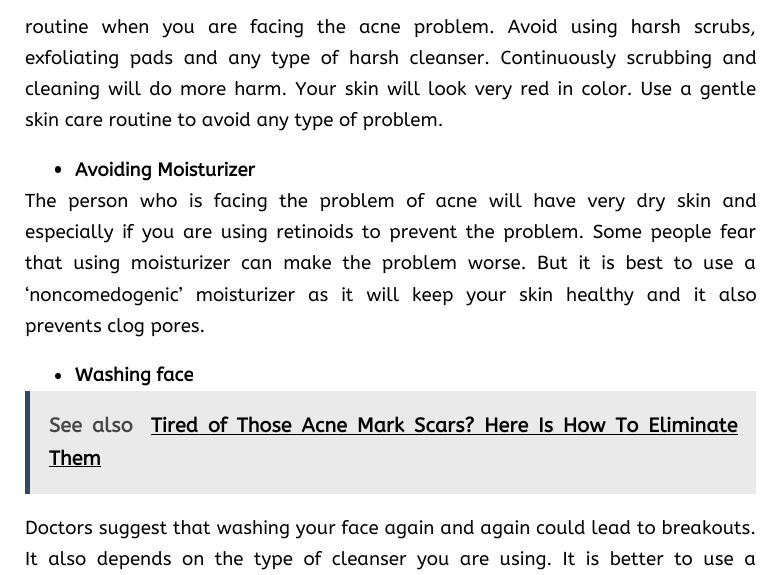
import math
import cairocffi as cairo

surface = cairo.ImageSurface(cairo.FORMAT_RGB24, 781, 575)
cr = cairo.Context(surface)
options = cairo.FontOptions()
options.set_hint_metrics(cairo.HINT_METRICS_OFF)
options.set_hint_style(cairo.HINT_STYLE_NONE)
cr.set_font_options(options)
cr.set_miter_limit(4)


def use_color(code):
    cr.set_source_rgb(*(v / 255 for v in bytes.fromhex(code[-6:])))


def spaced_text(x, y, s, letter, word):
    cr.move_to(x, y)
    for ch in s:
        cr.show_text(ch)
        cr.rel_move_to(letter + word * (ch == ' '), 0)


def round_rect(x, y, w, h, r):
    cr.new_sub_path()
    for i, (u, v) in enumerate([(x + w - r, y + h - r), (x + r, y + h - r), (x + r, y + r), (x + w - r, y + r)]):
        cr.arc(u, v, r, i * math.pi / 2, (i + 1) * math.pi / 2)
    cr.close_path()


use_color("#ffffff")
cr.paint()
cr.select_font_face("ABeeZee")
cr.set_font_size(18.75)
use_color("#000000")
spaced_text(25, 33, "routine when you are facing the acne problem. Avoid using harsh scrubs,", 0, 7.5)
spaced_text(25, 64, "exfoliating pads and any type of harsh cleanser. Continuously scrubbing and", 0, 4.9)
spaced_text(25, 95, "cleaning will do more harm. Your skin will look very red in color. Use a gentle", 0, 2.5)
cr.move_to(25, 126)
cr.show_text("skin care routine to avoid any type of problem.")
round_rect(55, 166, 6, 7, 3)
cr.fill()
cr.select_font_face("ABeeZee", cairo.FONT_SLANT_NORMAL, cairo.FONT_WEIGHT_BOLD)
cr.move_to(75, 176)
cr.show_text("Avoiding Moisturizer")
cr.select_font_face("ABeeZee")
spaced_text(25, 207, "The person who is facing the problem of acne will have very dry skin and", 0, 5.9)
spaced_text(25, 238, "especially if you are using retinoids to prevent the problem. Some people fear", 0, 3)
spaced_text(25, 269, "that using moisturizer can make the problem worse. But it is best to use a", 0, 5.1)
spaced_text(25, 301, "‘noncomedogenic’ moisturizer as it will keep your skin healthy and it also", 0, 7.25)
cr.move_to(25, 332)
cr.show_text("prevents clog pores.")
cr.new_path()
cr.arc(58, 376, 3, 0, 2 * math.pi)
cr.fill()
cr.select_font_face("ABeeZee", cairo.FONT_SLANT_NORMAL, cairo.FONT_WEIGHT_BOLD)
cr.move_to(75, 381)
cr.show_text("Washing face")
use_color("#eaeaea")
cr.rectangle(30, 391, 726, 103)
cr.fill()
use_color("#34495e")
cr.rectangle(25, 391, 5, 103)
cr.fill()
cr.set_font_size(20)
use_color("#464646")
spaced_text(49, 432, "See also", 0, 3.9)
use_color("#000000")
spaced_text(151, 432, "Tired of Those Acne Mark Scars? Here Is How To Eliminate", 0, 3.9)
cr.rectangle(151, 434, 587, 1)
cr.fill()
cr.move_to(49, 465)
cr.show_text("Them")
cr.rectangle(49, 466, 52, 1)
cr.fill()
cr.select_font_face("ABeeZee")
cr.set_font_size(18.75)
spaced_text(25, 534, "Doctors suggest that washing your face again and again could lead to breakouts.", 0, 0.25)
spaced_text(25, 565, "It also depends on the type of cleanser you are using. It is better to use a", 0, 4.9)
surface.write_to_png("result.png")
